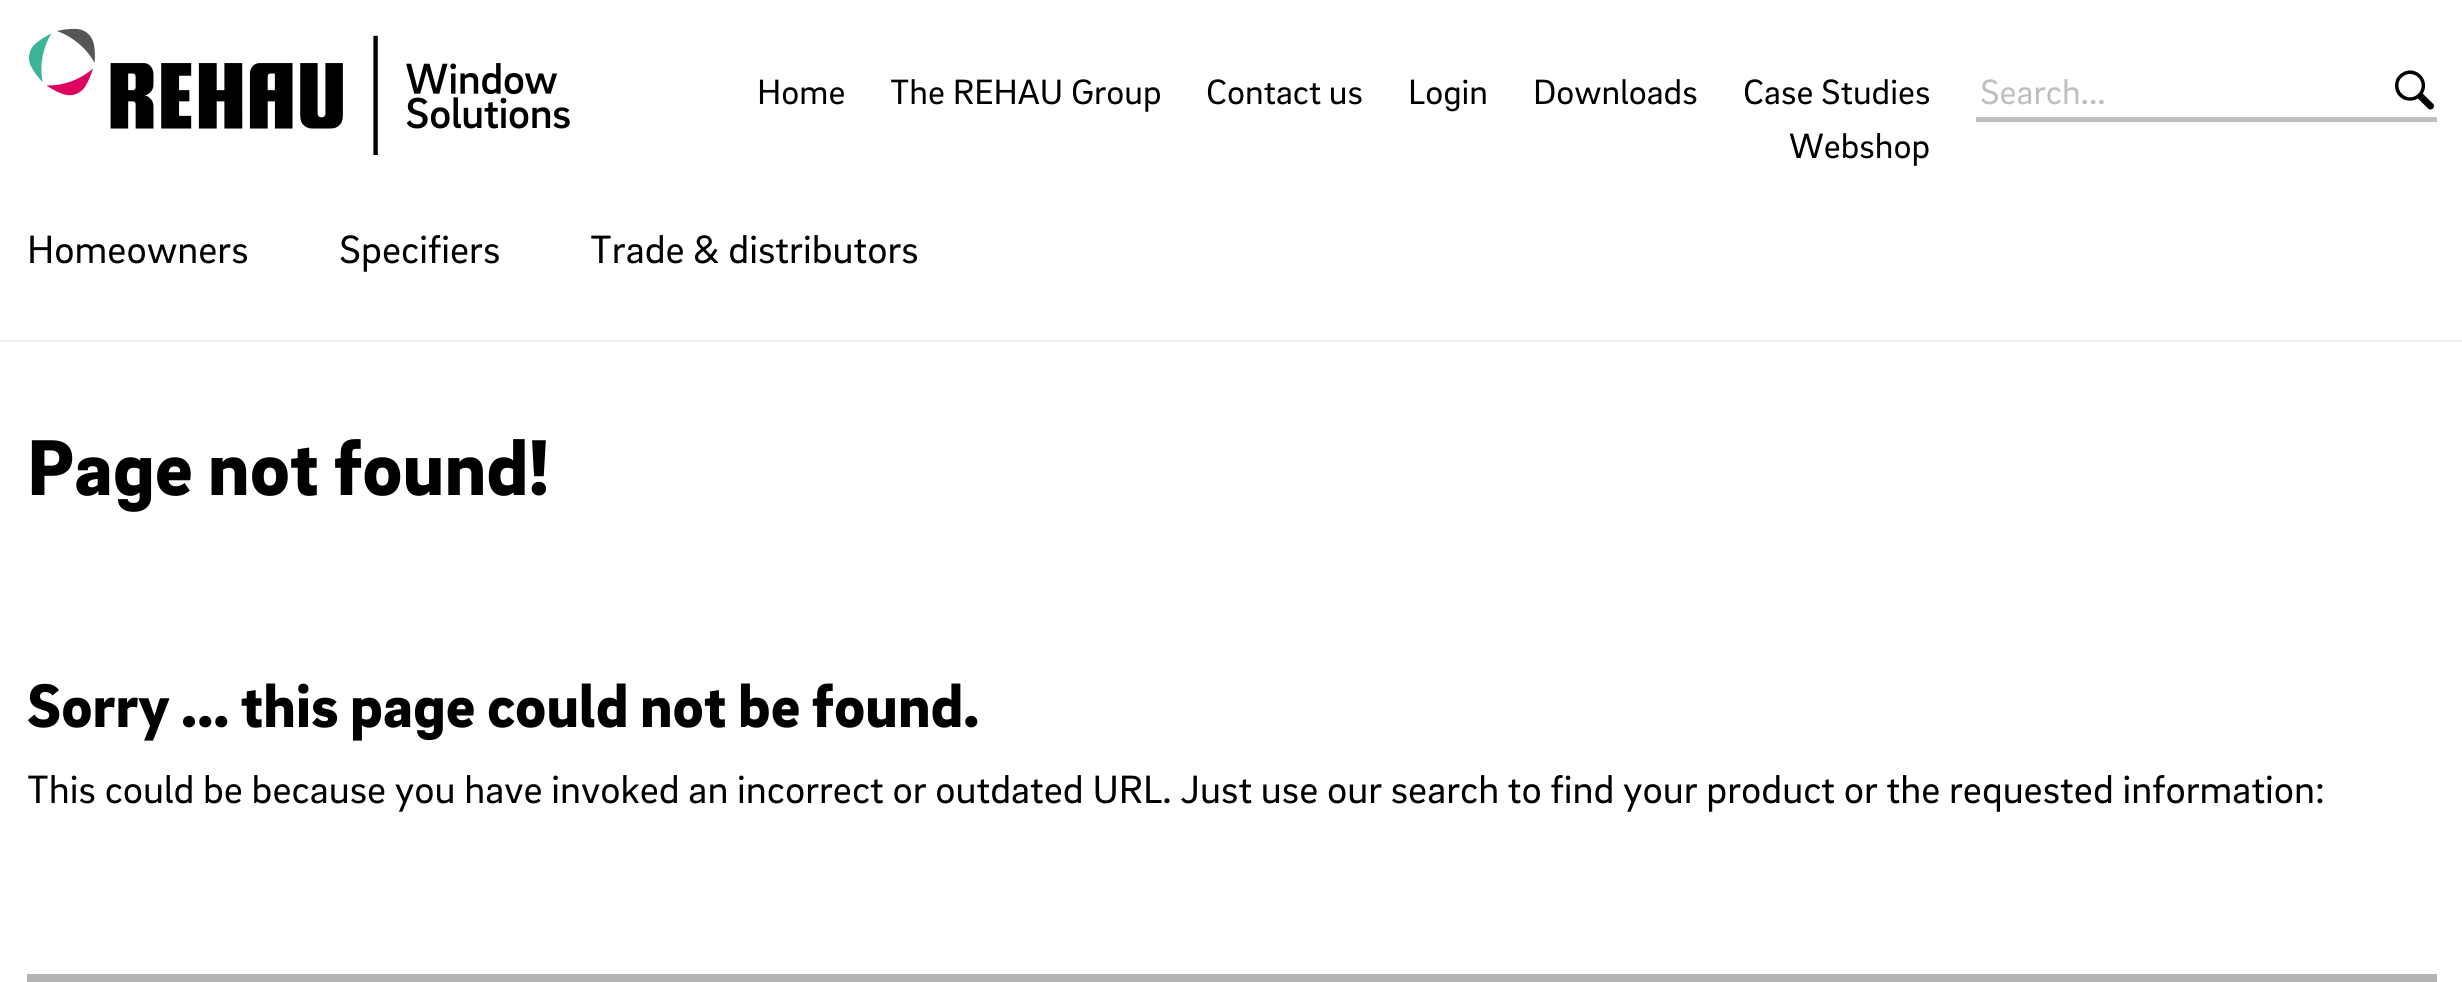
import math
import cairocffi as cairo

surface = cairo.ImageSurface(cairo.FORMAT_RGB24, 2462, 982)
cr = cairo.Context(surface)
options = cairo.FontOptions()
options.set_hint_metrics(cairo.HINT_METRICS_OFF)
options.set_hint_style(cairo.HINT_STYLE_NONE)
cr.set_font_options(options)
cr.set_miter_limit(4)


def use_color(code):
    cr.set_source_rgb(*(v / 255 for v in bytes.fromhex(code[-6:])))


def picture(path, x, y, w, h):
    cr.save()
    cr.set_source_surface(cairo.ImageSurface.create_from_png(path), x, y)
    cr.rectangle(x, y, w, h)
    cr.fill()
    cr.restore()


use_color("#ffffff")
cr.paint()
use_color("#f2f2f2")
cr.rectangle(0, 340, 2462, 2)
cr.fill()
picture("img1.png", 29, 28, 541, 127)
cr.select_font_face("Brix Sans")
cr.set_font_size(36)
use_color("#000000")
cr.move_to(757, 104)
cr.show_text("Home")
cr.move_to(890, 104)
cr.show_text("The REHAU Group")
cr.move_to(1206, 104)
cr.show_text("Contact us")
cr.move_to(1408, 104)
cr.show_text("Login")
cr.move_to(1533, 104)
cr.show_text("Downloads")
cr.move_to(1743, 104)
cr.show_text("Case Studies")
cr.move_to(1789, 158)
cr.show_text("Webshop")
use_color("#bfbfbf")
cr.rectangle(1976, 117, 461, 5)
cr.fill()
cr.move_to(1980, 104)
cr.show_text("Search...")
picture("img2.png", 2395, 70, 39, 40)
cr.set_font_size(40.5)
use_color("#000000")
cr.move_to(27, 263)
cr.show_text("Homeowners")
cr.move_to(339, 263)
cr.show_text("Specifiers")
cr.move_to(590, 263)
cr.show_text("Trade & distributors")
cr.select_font_face("Brix Sans Black")
cr.set_font_size(81)
cr.move_to(27, 495)
cr.show_text("Page not found!")
cr.set_font_size(63)
cr.move_to(27, 727)
cr.show_text("Sorry ... this page could not be found.")
cr.select_font_face("Brix Sans")
cr.set_font_size(40.5)
cr.move_to(27, 803)
cr.show_text("This could be because you have invoked an incorrect or outdated URL. Just use our search to find your product or the requested information:")
use_color("#b1b2b3")
cr.rectangle(27, 974, 2410, 8)
cr.fill()
surface.write_to_png("result.png")
